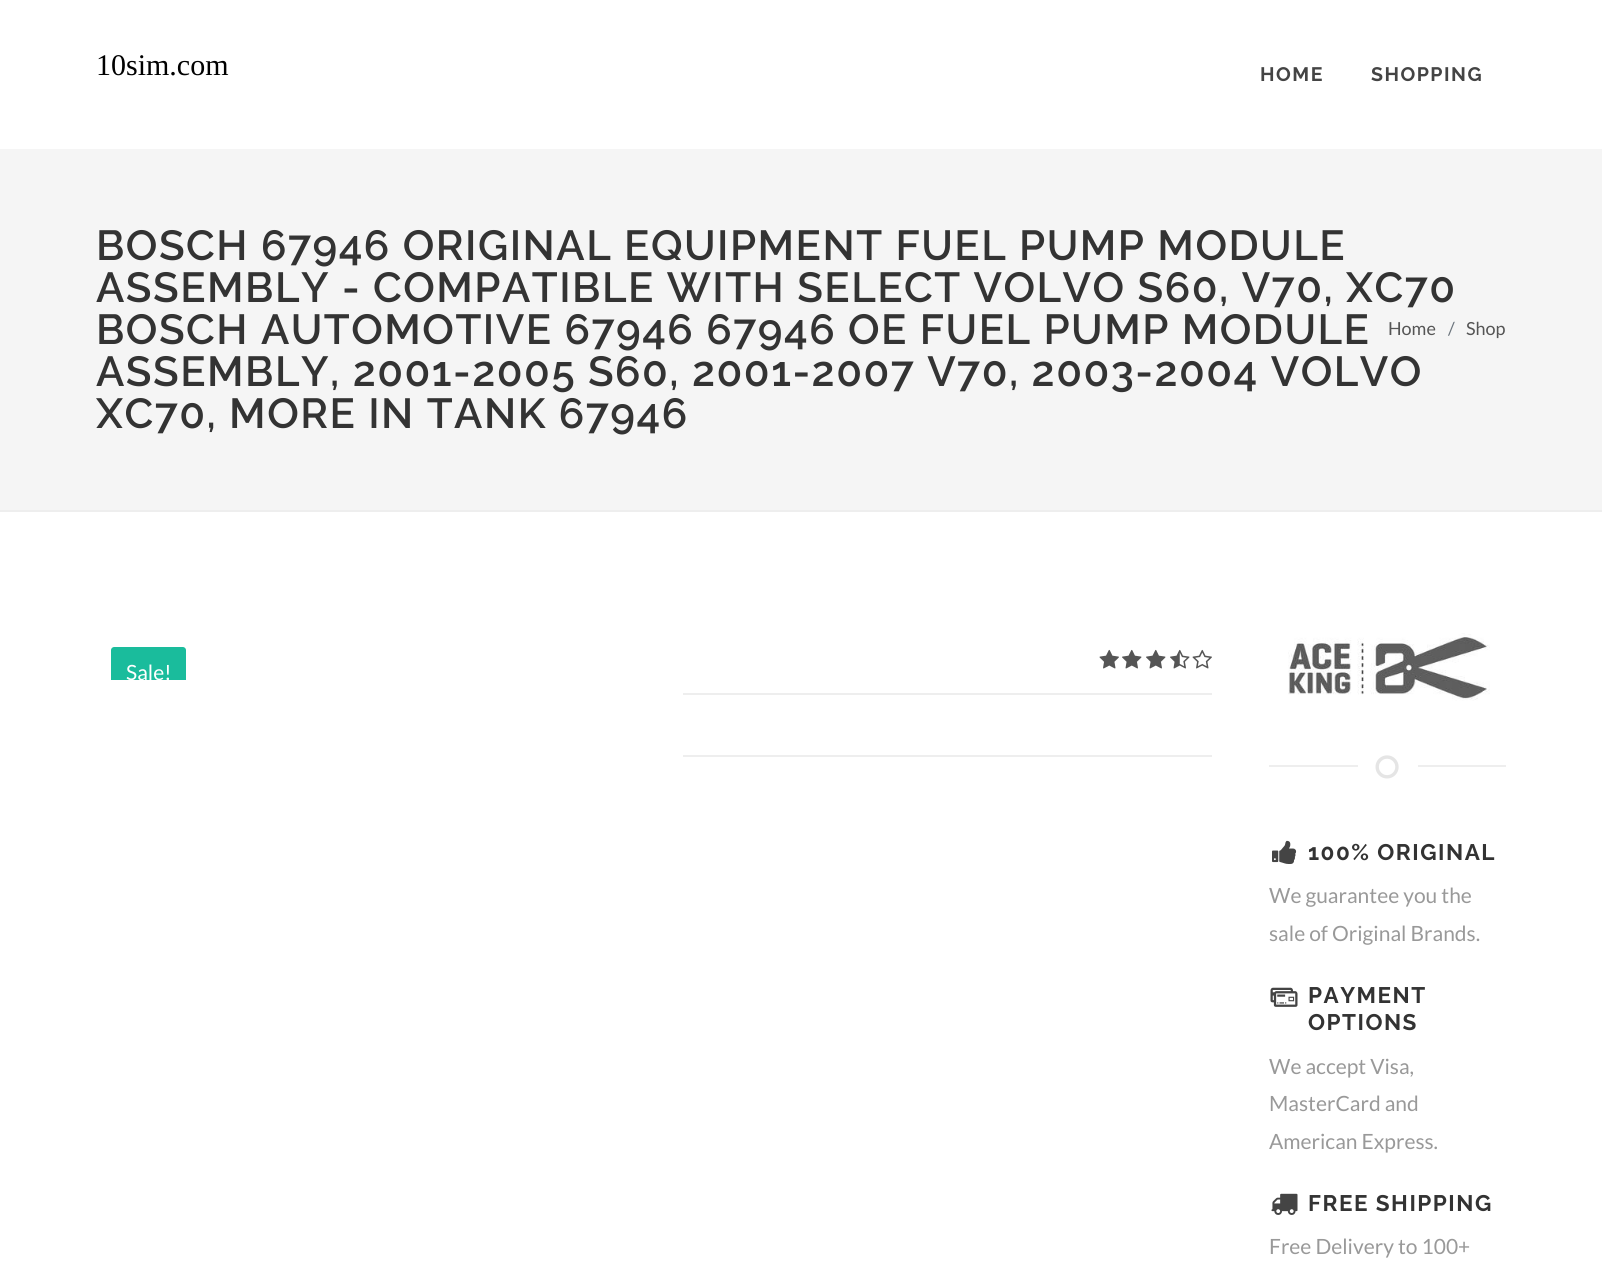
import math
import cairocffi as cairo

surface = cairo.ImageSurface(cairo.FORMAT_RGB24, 1602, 1273)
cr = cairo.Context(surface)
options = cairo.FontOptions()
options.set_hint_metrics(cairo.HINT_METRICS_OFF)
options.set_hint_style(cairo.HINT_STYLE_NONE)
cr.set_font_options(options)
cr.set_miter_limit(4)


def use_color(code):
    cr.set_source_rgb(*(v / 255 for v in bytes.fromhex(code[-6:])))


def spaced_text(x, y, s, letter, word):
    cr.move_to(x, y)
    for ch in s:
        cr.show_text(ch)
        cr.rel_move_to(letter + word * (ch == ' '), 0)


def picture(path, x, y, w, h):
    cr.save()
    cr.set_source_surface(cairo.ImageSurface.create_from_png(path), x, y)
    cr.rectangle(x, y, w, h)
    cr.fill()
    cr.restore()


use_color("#ffffff")
cr.paint()
use_color("#f5f5f5")
cr.rectangle(0, 149, 1602, 361)
cr.fill()
cr.select_font_face("Liberation Serif")
cr.set_font_size(30)
use_color("#000000")
cr.move_to(96, 75)
cr.show_text("10sim.com")
cr.select_font_face("Raleway", cairo.FONT_SLANT_NORMAL, cairo.FONT_WEIGHT_BOLD)
cr.set_font_size(19.5)
use_color("#444444")
spaced_text(1260, 81, "HOME", 1.5, 0)
spaced_text(1371, 81, "SHOPPING", 1.5, 0)
use_color("#eeeeee")
cr.rectangle(0, 510, 1602, 2)
cr.fill()
cr.select_font_face("Raleway SemiBold")
cr.set_font_size(42)
use_color("#333333")
spaced_text(96, 260, "BOSCH 67946 ORIGINAL EQUIPMENT FUEL PUMP MODULE", 1.5, 0)
spaced_text(96, 302, "ASSEMBLY - COMPATIBLE WITH SELECT VOLVO S60, V70, XC70", 1.5, 0)
spaced_text(96, 344, "BOSCH AUTOMOTIVE 67946 67946 OE FUEL PUMP MODULE", 1.5, 0)
spaced_text(96, 386, "ASSEMBLY, 2001-2005 S60, 2001-2007 V70, 2003-2004 VOLVO", 1.5, 0)
spaced_text(96, 428, "XC70, MORE IN TANK 67946", 1.5, 0)
cr.select_font_face("Lato")
cr.set_font_size(18)
use_color("#555555")
cr.move_to(1388, 335)
cr.show_text("Home")
use_color("#6c757d")
cr.move_to(1448, 335)
cr.show_text("/")
use_color("#555555")
cr.move_to(1466, 335)
cr.show_text("Shop")
use_color("#1abc9c")
cr.new_path()
cr.move_to(114, 647)
cr.line_to(183, 647)
cr.curve_to(184.5, 647, 186, 648.5, 186, 650)
cr.line_to(186, 680)
cr.line_to(111, 680)
cr.line_to(111, 650)
cr.curve_to(111, 648.5, 112.5, 647, 114, 647)
cr.close_path()
cr.fill()
cr.save()
cr.rectangle(96, 632, 530, 48)
cr.clip()
cr.set_font_size(21)
use_color("#ffffff")
cr.move_to(126, 680)
cr.show_text("Sale!")
cr.restore()
picture("img1.png", 1099, 649, 20, 20)
picture("img2.png", 1122, 649, 20, 20)
picture("img2.png", 1146, 649, 20, 20)
picture("img3.png", 1170, 649, 20, 20)
picture("img4.png", 1192, 649, 20, 20)
use_color("#eeeeee")
cr.rectangle(683, 693, 529, 2)
cr.fill()
cr.rectangle(683, 755, 529, 2)
cr.fill()
picture("img5.png", 1288, 633, 202, 68)
cr.rectangle(1269, 765, 89, 2)
cr.fill()
picture("img6.png", 1375, 755, 24, 24)
cr.rectangle(1418, 765, 88, 2)
cr.fill()
picture("img7.png", 1272, 840, 25, 24)
cr.select_font_face("Raleway", cairo.FONT_SLANT_NORMAL, cairo.FONT_WEIGHT_BOLD)
cr.set_font_size(22.5)
use_color("#333333")
spaced_text(1308, 860, "100% ORIGINAL", 1.5, 0)
cr.select_font_face("Lato")
cr.set_font_size(21)
use_color("#999999")
cr.move_to(1269, 903)
cr.show_text("We guarantee you the")
cr.move_to(1269, 941)
cr.show_text("sale of Original Brands.")
picture("img8.png", 1270, 987, 28, 20)
cr.select_font_face("Raleway", cairo.FONT_SLANT_NORMAL, cairo.FONT_WEIGHT_BOLD)
cr.set_font_size(22.5)
use_color("#333333")
spaced_text(1308, 1003, "PAYMENT", 1.5, 0)
spaced_text(1308, 1030, "OPTIONS", 1.5, 0)
cr.select_font_face("Lato")
cr.set_font_size(21)
use_color("#999999")
cr.move_to(1269, 1074)
cr.show_text("We accept Visa,")
cr.move_to(1269, 1111)
cr.show_text("MasterCard and")
cr.move_to(1269, 1149)
cr.show_text("American Express.")
picture("img9.png", 1271, 1193, 27, 22)
cr.select_font_face("Raleway", cairo.FONT_SLANT_NORMAL, cairo.FONT_WEIGHT_BOLD)
cr.set_font_size(22.5)
use_color("#333333")
spaced_text(1308, 1211, "FREE SHIPPING", 1.5, 0)
cr.select_font_face("Lato")
cr.set_font_size(21)
use_color("#999999")
cr.move_to(1269, 1254)
cr.show_text("Free Delivery to 100+")
surface.write_to_png("result.png")
